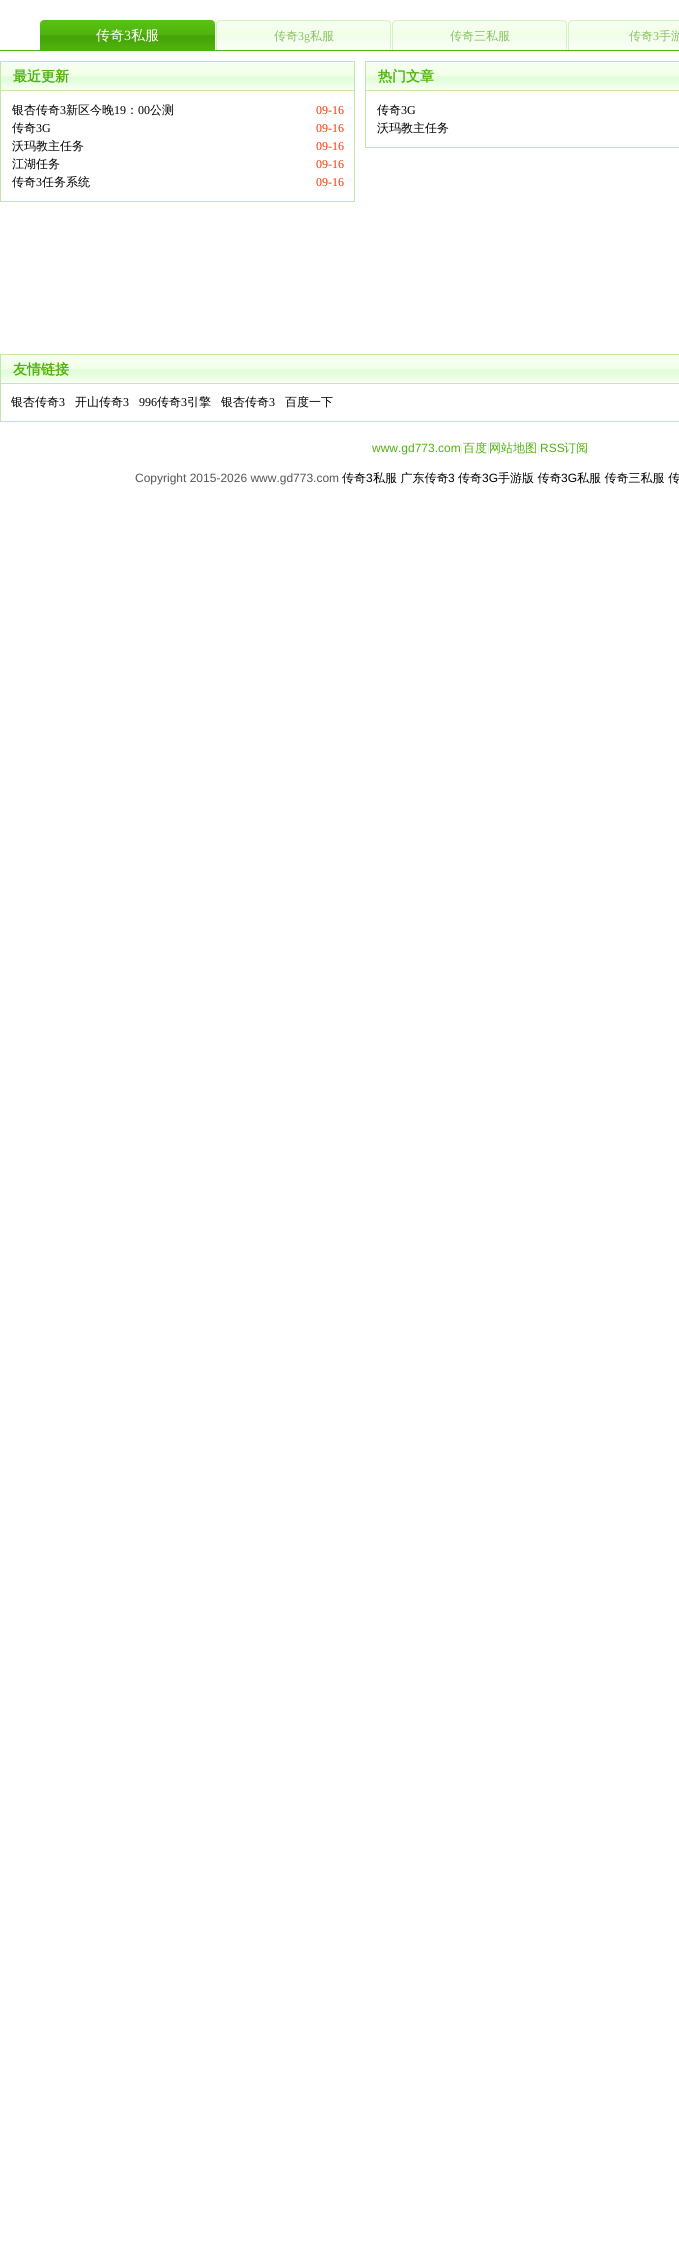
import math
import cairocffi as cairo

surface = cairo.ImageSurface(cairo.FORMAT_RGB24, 679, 2241)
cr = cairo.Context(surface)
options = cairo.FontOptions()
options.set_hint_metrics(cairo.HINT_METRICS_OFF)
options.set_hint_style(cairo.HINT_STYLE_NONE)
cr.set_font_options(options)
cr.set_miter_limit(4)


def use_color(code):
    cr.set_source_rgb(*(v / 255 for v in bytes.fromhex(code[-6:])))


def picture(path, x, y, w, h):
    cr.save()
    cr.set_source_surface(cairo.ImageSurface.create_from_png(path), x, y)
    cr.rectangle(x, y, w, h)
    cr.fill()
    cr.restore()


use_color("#ffffff")
cr.paint()
picture("img1.png", 40, 20, 175, 30)
cr.select_font_face("WenQuanYi Zen Hei Medium")
cr.set_font_size(14)
use_color("#ffffff")
cr.move_to(96, 40)
cr.show_text("传奇")
cr.select_font_face("Liberation Serif")
cr.move_to(124, 40)
cr.show_text("3")
cr.select_font_face("WenQuanYi Zen Hei Medium")
cr.move_to(131, 40)
cr.show_text("私服")
picture("img2.png", 216, 20, 175, 30)
cr.set_font_size(12)
use_color("#89c165")
cr.move_to(274, 40)
cr.show_text("传奇")
cr.select_font_face("Liberation Serif")
cr.move_to(298, 40)
cr.show_text("3g")
cr.select_font_face("WenQuanYi Zen Hei Medium")
cr.move_to(310, 40)
cr.show_text("私服")
picture("img2.png", 392, 20, 175, 30)
cr.move_to(450, 40)
cr.show_text("传奇三私服")
picture("img3.png", 568, 20, 111, 30)
cr.move_to(629, 40)
cr.show_text("传奇")
cr.select_font_face("Liberation Serif")
cr.move_to(653, 40)
cr.show_text("3")
cr.select_font_face("WenQuanYi Zen Hei Medium")
cr.move_to(659, 40)
cr.show_text("手游")
use_color("#50b20e")
cr.rectangle(0, 50, 679, 1)
cr.fill()
cr.rectangle(0.5, 61.5, 354, 140)
use_color("#c1e7aa")
cr.set_line_width(1)
cr.stroke()
picture("img4.png", 1, 63, 353, 28)
cr.select_font_face("WenQuanYi Zen Hei", cairo.FONT_SLANT_NORMAL, cairo.FONT_WEIGHT_BOLD)
cr.set_font_size(14)
use_color("#4eb30f")
cr.move_to(13, 81)
cr.show_text("最近更新")
cr.select_font_face("WenQuanYi Zen Hei Medium")
cr.set_font_size(12)
use_color("#000000")
cr.move_to(12, 114)
cr.show_text("银杏传奇")
cr.select_font_face("Liberation Serif")
cr.move_to(60, 114)
cr.show_text("3")
cr.select_font_face("WenQuanYi Zen Hei Medium")
cr.move_to(66, 114)
cr.show_text("新区今晚")
cr.select_font_face("Liberation Serif")
cr.move_to(114, 114)
cr.show_text("19")
cr.select_font_face("WenQuanYi Zen Hei Medium")
cr.move_to(126, 114)
cr.show_text("：")
cr.select_font_face("Liberation Serif")
cr.move_to(138, 114)
cr.show_text("00")
cr.select_font_face("WenQuanYi Zen Hei Medium")
cr.move_to(150, 114)
cr.show_text("公测")
cr.select_font_face("Liberation Serif")
use_color("#ff3300")
cr.move_to(316, 114)
cr.show_text("09-16")
cr.select_font_face("WenQuanYi Zen Hei Medium")
use_color("#000000")
cr.move_to(12, 132)
cr.show_text("传奇")
cr.select_font_face("Liberation Serif")
cr.move_to(36, 132)
cr.show_text("3G")
use_color("#ff3300")
cr.move_to(316, 132)
cr.show_text("09-16")
cr.select_font_face("WenQuanYi Zen Hei Medium")
use_color("#000000")
cr.move_to(12, 150)
cr.show_text("沃玛教主任务")
cr.select_font_face("Liberation Serif")
use_color("#ff3300")
cr.move_to(316, 150)
cr.show_text("09-16")
cr.select_font_face("WenQuanYi Zen Hei Medium")
use_color("#000000")
cr.move_to(12, 168)
cr.show_text("江湖任务")
cr.select_font_face("Liberation Serif")
use_color("#ff3300")
cr.move_to(316, 168)
cr.show_text("09-16")
cr.select_font_face("WenQuanYi Zen Hei Medium")
use_color("#000000")
cr.move_to(12, 186)
cr.show_text("传奇")
cr.select_font_face("Liberation Serif")
cr.move_to(36, 186)
cr.show_text("3")
cr.select_font_face("WenQuanYi Zen Hei Medium")
cr.move_to(42, 186)
cr.show_text("任务系统")
cr.select_font_face("Liberation Serif")
use_color("#ff3300")
cr.move_to(316, 186)
cr.show_text("09-16")
cr.rectangle(365.5, 61.5, 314, 86)
use_color("#c1e7aa")
cr.stroke()
picture("img5.png", 366, 63, 313, 28)
cr.select_font_face("WenQuanYi Zen Hei", cairo.FONT_SLANT_NORMAL, cairo.FONT_WEIGHT_BOLD)
cr.set_font_size(14)
use_color("#4eb30f")
cr.move_to(378, 81)
cr.show_text("热门文章")
cr.select_font_face("WenQuanYi Zen Hei Medium")
cr.set_font_size(12)
use_color("#000000")
cr.move_to(377, 114)
cr.show_text("传奇")
cr.select_font_face("Liberation Serif")
cr.move_to(401, 114)
cr.show_text("3G")
cr.select_font_face("WenQuanYi Zen Hei Medium")
cr.move_to(377, 132)
cr.show_text("沃玛教主任务")
cr.rectangle(0.5, 354.5, 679, 67)
use_color("#c1e7aa")
cr.stroke()
picture("img6.png", 1, 356, 678, 28)
cr.select_font_face("WenQuanYi Zen Hei", cairo.FONT_SLANT_NORMAL, cairo.FONT_WEIGHT_BOLD)
cr.set_font_size(14)
use_color("#4eb30f")
cr.move_to(13, 374)
cr.show_text("友情链接")
cr.select_font_face("WenQuanYi Zen Hei Medium")
cr.set_font_size(12)
use_color("#000000")
cr.move_to(11, 406)
cr.show_text("银杏传奇")
cr.select_font_face("Liberation Serif")
cr.move_to(59, 406)
cr.show_text("3")
cr.select_font_face("WenQuanYi Zen Hei Medium")
cr.move_to(75, 406)
cr.show_text("开山传奇")
cr.select_font_face("Liberation Serif")
cr.move_to(123, 406)
cr.show_text("3")
cr.move_to(139, 406)
cr.show_text("996")
cr.select_font_face("WenQuanYi Zen Hei Medium")
cr.move_to(157, 406)
cr.show_text("传奇")
cr.select_font_face("Liberation Serif")
cr.move_to(181, 406)
cr.show_text("3")
cr.select_font_face("WenQuanYi Zen Hei Medium")
cr.move_to(187, 406)
cr.show_text("引擎")
cr.move_to(221, 406)
cr.show_text("银杏传奇")
cr.select_font_face("Liberation Serif")
cr.move_to(269, 406)
cr.show_text("3")
cr.select_font_face("WenQuanYi Zen Hei Medium")
cr.move_to(285, 406)
cr.show_text("百度一下")
cr.select_font_face("Liberation Sans")
use_color("#4eb30f")
cr.move_to(372, 452)
cr.show_text("www.gd773.com")
cr.select_font_face("Liberation Serif")
use_color("#d0e6c0")
cr.move_to(460, 452)
cr.show_text("|")
cr.select_font_face("WenQuanYi Zen Hei Medium")
use_color("#4eb30f")
cr.move_to(463, 452)
cr.show_text("百度")
cr.select_font_face("Liberation Serif")
use_color("#d0e6c0")
cr.move_to(487, 452)
cr.show_text("|")
cr.select_font_face("WenQuanYi Zen Hei Medium")
use_color("#4eb30f")
cr.move_to(489, 452)
cr.show_text("网站地图")
cr.select_font_face("Liberation Serif")
use_color("#d0e6c0")
cr.move_to(537, 452)
cr.show_text("|")
cr.select_font_face("Liberation Sans")
use_color("#4eb30f")
cr.move_to(540, 452)
cr.show_text("RSS")
cr.select_font_face("WenQuanYi Zen Hei Medium")
cr.move_to(564, 452)
cr.show_text("订阅")
cr.select_font_face("Liberation Sans")
use_color("#555555")
cr.move_to(135, 482)
cr.show_text("Copyright 2015-2026 www.gd773.com")
cr.select_font_face("WenQuanYi Zen Hei Medium")
use_color("#000000")
cr.move_to(342, 482)
cr.show_text("传奇")
cr.select_font_face("Liberation Sans")
cr.move_to(366, 482)
cr.show_text("3")
cr.select_font_face("WenQuanYi Zen Hei Medium")
cr.move_to(373, 482)
cr.show_text("私服 广东传奇")
cr.select_font_face("Liberation Sans")
cr.move_to(448, 482)
cr.show_text("3")
cr.select_font_face("WenQuanYi Zen Hei Medium")
cr.move_to(458, 482)
cr.show_text("传奇")
cr.select_font_face("Liberation Sans")
cr.move_to(482, 482)
cr.show_text("3G")
cr.select_font_face("WenQuanYi Zen Hei Medium")
cr.move_to(498, 482)
cr.show_text("手游版 传奇")
cr.select_font_face("Liberation Sans")
cr.move_to(561, 482)
cr.show_text("3G")
cr.select_font_face("WenQuanYi Zen Hei Medium")
cr.move_to(577, 482)
cr.show_text("私服 传奇三私服 传")
surface.write_to_png("result.png")
